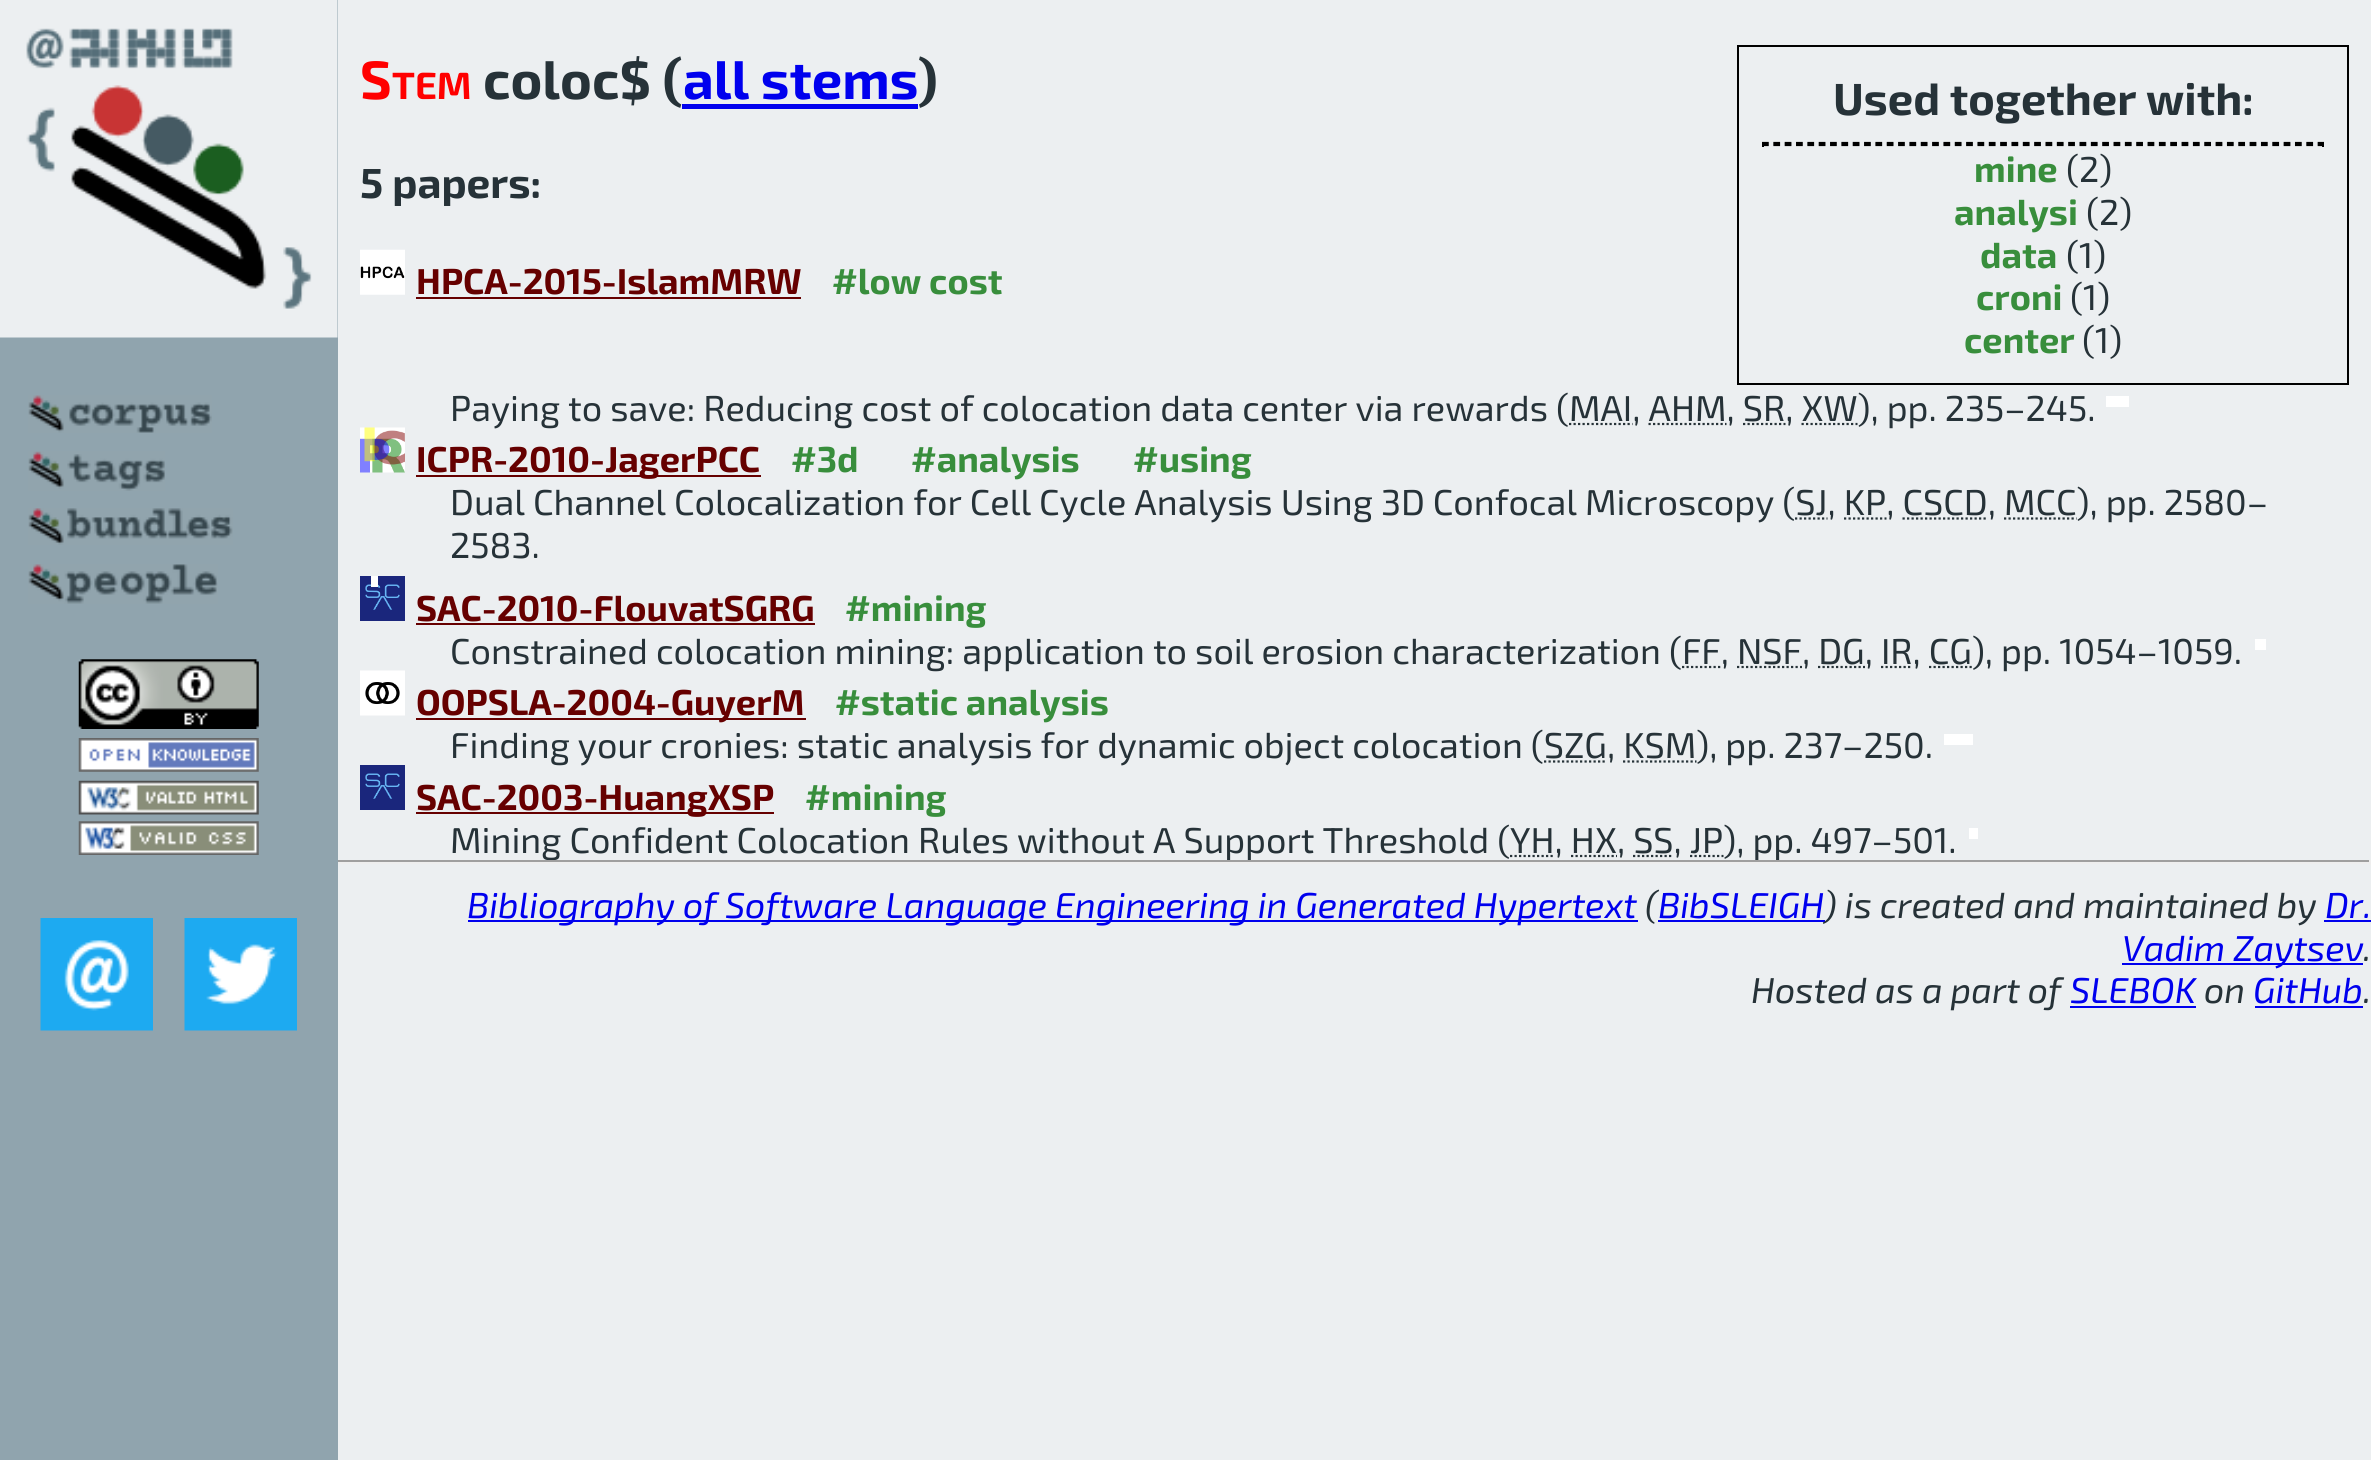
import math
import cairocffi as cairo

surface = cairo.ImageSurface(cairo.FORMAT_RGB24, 2371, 1460)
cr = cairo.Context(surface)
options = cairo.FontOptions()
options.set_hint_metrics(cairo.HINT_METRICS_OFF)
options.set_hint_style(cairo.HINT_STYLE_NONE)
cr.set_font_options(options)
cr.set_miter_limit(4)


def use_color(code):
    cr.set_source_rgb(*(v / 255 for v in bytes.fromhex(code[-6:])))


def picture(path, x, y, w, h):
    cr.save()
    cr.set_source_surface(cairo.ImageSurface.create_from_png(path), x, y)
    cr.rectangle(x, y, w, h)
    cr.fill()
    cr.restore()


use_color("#eceff1")
cr.paint()
use_color("#90a4ae")
cr.rectangle(0, 0, 338, 1460)
cr.fill()
picture("img1.png", 0, 0, 338, 338)
picture("img2.png", 28, 395, 184, 38)
picture("img3.png", 28, 451, 137, 40)
picture("img4.png", 28, 508, 205, 37)
picture("img5.png", 28, 564, 190, 40)
picture("img6.png", 78, 659, 181, 70)
picture("img7.png", 78, 738, 181, 34)
picture("img8.png", 78, 780, 181, 35)
picture("img9.png", 78, 821, 181, 34)
picture("img10.png", 40, 918, 113, 113)
picture("img11.png", 184, 918, 113, 113)
cr.select_font_face("Exo 2", cairo.FONT_SLANT_NORMAL, cairo.FONT_WEIGHT_BOLD)
cr.set_font_size(54)
use_color("#ff0000")
cr.move_to(360, 99)
cr.show_text("S")
cr.set_font_size(38)
cr.move_to(392, 99)
cr.show_text("TEM")
cr.set_font_size(54)
use_color("#263238")
cr.move_to(483, 99)
cr.show_text("coloc$ (")
use_color("#0000ee")
cr.move_to(683, 99)
cr.show_text("all stems")
cr.rectangle(682, 104, 236, 5)
cr.fill()
use_color("#263238")
cr.move_to(918, 99)
cr.show_text(")")
cr.rectangle(1738, 46, 610, 338)
use_color("#000000")
cr.stroke()
cr.set_font_size(45)
use_color("#263238")
cr.move_to(1833, 115)
cr.show_text("Used together with:")
cr.new_path()
cr.move_to(1762, 143)
cr.line_to(2324, 143)
use_color("#000000")
cr.set_line_width(2.2)
cr.set_dash([6.75, 4.59])
cr.stroke()
cr.rectangle(2322, 142, 2, 5)
cr.fill()
cr.new_path()
cr.move_to(1762, 145)
cr.line_to(2324, 145)
cr.stroke()
cr.rectangle(1762, 142, 2, 5)
cr.fill()
cr.set_font_size(36)
use_color("#388e3c")
cr.move_to(1974, 182)
cr.show_text("mine")
cr.select_font_face("Exo 2")
use_color("#263238")
cr.move_to(2066, 182)
cr.show_text("(2)")
cr.select_font_face("Exo 2", cairo.FONT_SLANT_NORMAL, cairo.FONT_WEIGHT_BOLD)
use_color("#388e3c")
cr.move_to(1954, 225)
cr.show_text("analysi")
cr.select_font_face("Exo 2")
use_color("#263238")
cr.move_to(2086, 225)
cr.show_text("(2)")
cr.select_font_face("Exo 2", cairo.FONT_SLANT_NORMAL, cairo.FONT_WEIGHT_BOLD)
use_color("#388e3c")
cr.move_to(1980, 268)
cr.show_text("data")
cr.select_font_face("Exo 2")
use_color("#263238")
cr.move_to(2066, 268)
cr.show_text("(1)")
cr.select_font_face("Exo 2", cairo.FONT_SLANT_NORMAL, cairo.FONT_WEIGHT_BOLD)
use_color("#388e3c")
cr.move_to(1976, 310)
cr.show_text("croni")
cr.select_font_face("Exo 2")
use_color("#263238")
cr.move_to(2070, 310)
cr.show_text("(1)")
cr.select_font_face("Exo 2", cairo.FONT_SLANT_NORMAL, cairo.FONT_WEIGHT_BOLD)
use_color("#388e3c")
cr.move_to(1964, 353)
cr.show_text("center")
cr.select_font_face("Exo 2")
use_color("#263238")
cr.move_to(2082, 353)
cr.show_text("(1)")
cr.select_font_face("Exo 2", cairo.FONT_SLANT_NORMAL, cairo.FONT_WEIGHT_BOLD)
cr.set_font_size(42)
cr.move_to(360, 198)
cr.show_text("5 papers:")
picture("img12.png", 360, 249, 45, 46)
cr.set_font_size(36)
use_color("#660000")
cr.move_to(416, 294)
cr.show_text("HPCA-2015-IslamMRW")
cr.rectangle(416, 297, 385, 2)
cr.fill()
use_color("#388e3c")
cr.move_to(832, 294)
cr.show_text("#low cost")
cr.select_font_face("Exo 2")
use_color("#263238")
cr.move_to(450, 421)
cr.show_text("Paying to save: Reducing cost of colocation data center via rewards (MAI, AHM, SR, XW), pp. 235–245.")
cr.new_path()
cr.move_to(1569, 424)
cr.line_to(1632.5, 424)
cr.set_dash([2.25, 2.25])
cr.stroke()
cr.new_path()
cr.move_to(1648.5, 424)
cr.line_to(1726.5, 424)
cr.stroke()
cr.new_path()
cr.move_to(1743, 424)
cr.line_to(1785.5, 424)
cr.stroke()
cr.new_path()
cr.move_to(1801.5, 424)
cr.line_to(1857.5, 424)
cr.stroke()
use_color("#ffffff")
cr.rectangle(2106, 396, 23, 11)
cr.fill()
picture("img13.png", 360, 427, 45, 46)
use_color("#660000")
cr.rectangle(416, 475, 345, 2)
cr.fill()
cr.select_font_face("Exo 2", cairo.FONT_SLANT_NORMAL, cairo.FONT_WEIGHT_BOLD)
cr.move_to(416, 472)
cr.show_text("ICPR-2010-JagerPCC")
use_color("#388e3c")
cr.move_to(791, 472)
cr.show_text("#3d")
cr.move_to(911, 472)
cr.show_text("#analysis")
cr.move_to(1133, 472)
cr.show_text("#using")
cr.select_font_face("Exo 2")
use_color("#263238")
cr.move_to(450, 515)
cr.show_text("Dual Channel Colocalization for Cell Cycle Analysis Using 3D Confocal Microscopy (SJ, KP, CSCD, MCC), pp. 2580–")
cr.new_path()
cr.move_to(1795, 518.5)
cr.line_to(1827.5, 518.5)
cr.stroke()
cr.new_path()
cr.move_to(1844, 518.5)
cr.line_to(1886.5, 518.5)
cr.stroke()
cr.new_path()
cr.move_to(1902.5, 518.5)
cr.line_to(1988, 518.5)
cr.stroke()
cr.new_path()
cr.move_to(2004, 518.5)
cr.line_to(2076.5, 518.5)
cr.stroke()
cr.move_to(450, 558)
cr.show_text("2583.")
picture("img14.png", 360, 576, 45, 45)
use_color("#ffffff")
cr.rectangle(371, 576, 7, 11)
cr.fill()
cr.select_font_face("Exo 2", cairo.FONT_SLANT_NORMAL, cairo.FONT_WEIGHT_BOLD)
use_color("#660000")
cr.move_to(416, 621)
cr.show_text("SAC-2010-FlouvatSGRG")
cr.rectangle(416, 623, 399, 2)
cr.fill()
use_color("#388e3c")
cr.move_to(845, 621)
cr.show_text("#mining")
cr.select_font_face("Exo 2")
use_color("#263238")
cr.move_to(450, 664)
cr.show_text("Constrained colocation mining: application to soil erosion characterization (FF, NSF, DG, IR, CG), pp. 1054–1059.")
cr.new_path()
cr.move_to(1682, 667)
cr.line_to(1720.5, 667)
cr.stroke()
cr.new_path()
cr.move_to(1737, 667)
cr.line_to(1802, 667)
cr.stroke()
cr.new_path()
cr.move_to(1818, 667)
cr.line_to(1865, 667)
cr.stroke()
cr.new_path()
cr.move_to(1881, 667)
cr.line_to(1912.5, 667)
cr.stroke()
cr.new_path()
cr.move_to(1929, 667)
cr.line_to(1972, 667)
cr.stroke()
use_color("#ffffff")
cr.rectangle(2255, 639, 11, 11)
cr.fill()
picture("img15.png", 360, 670, 45, 46)
use_color("#660000")
cr.rectangle(416, 718, 390, 2)
cr.fill()
cr.select_font_face("Exo 2", cairo.FONT_SLANT_NORMAL, cairo.FONT_WEIGHT_BOLD)
cr.move_to(416, 715)
cr.show_text("OOPSLA-2004-GuyerM")
use_color("#388e3c")
cr.move_to(835, 715)
cr.show_text("#static analysis")
cr.select_font_face("Exo 2")
use_color("#263238")
cr.move_to(450, 758)
cr.show_text("Finding your cronies: static analysis for dynamic object colocation (SZG, KSM), pp. 237–250.")
cr.new_path()
cr.move_to(1544, 761.5)
cr.line_to(1607, 761.5)
cr.stroke()
cr.new_path()
cr.move_to(1623, 761.5)
cr.line_to(1696.5, 761.5)
cr.stroke()
use_color("#ffffff")
cr.rectangle(1944, 734, 29, 11)
cr.fill()
picture("img14.png", 360, 765, 45, 45)
use_color("#660000")
cr.rectangle(416, 812, 358, 2)
cr.fill()
cr.select_font_face("Exo 2", cairo.FONT_SLANT_NORMAL, cairo.FONT_WEIGHT_BOLD)
cr.move_to(416, 810)
cr.show_text("SAC-2003-HuangXSP")
use_color("#388e3c")
cr.move_to(805, 810)
cr.show_text("#mining")
cr.select_font_face("Exo 2")
use_color("#263238")
cr.move_to(450, 853)
cr.show_text("Mining Confident Colocation Rules without A Support Threshold (YH, HX, SS, JP), pp. 497–501.")
cr.new_path()
cr.move_to(1510, 856)
cr.line_to(1554.5, 856)
cr.stroke()
cr.new_path()
cr.move_to(1571, 856)
cr.line_to(1617, 856)
cr.stroke()
cr.new_path()
cr.move_to(1633, 856)
cr.line_to(1673.5, 856)
cr.stroke()
cr.new_path()
cr.move_to(1690, 856)
cr.line_to(1723.5, 856)
cr.stroke()
use_color("#ffffff")
cr.rectangle(1969, 828, 9, 11)
cr.fill()
use_color("#9f9f9f")
cr.rectangle(338, 860, 2033, 2)
cr.fill()
use_color("#eeeeee")
cr.rectangle(2369, 860, 2, 5)
cr.fill()
cr.rectangle(338, 862, 2033, 2)
cr.fill()
use_color("#0000ee")
cr.rectangle(468, 920, 1170, 2)
cr.fill()
cr.select_font_face("Exo 2", cairo.FONT_SLANT_ITALIC)
cr.move_to(467, 918)
cr.show_text("Bibliography of Software Language Engineering in Generated Hypertext")
use_color("#263238")
cr.move_to(1645, 918)
cr.show_text("(")
use_color("#0000ee")
cr.move_to(1658, 918)
cr.show_text("BibSLEIGH")
cr.rectangle(1658, 920, 167, 2)
cr.fill()
use_color("#263238")
cr.move_to(1824, 918)
cr.show_text(") is created and maintained by")
use_color("#0000ee")
cr.move_to(2325, 918)
cr.show_text("Dr.")
cr.rectangle(2324, 920, 47, 2)
cr.fill()
cr.rectangle(2122, 963, 241, 2)
cr.fill()
cr.move_to(2122, 961)
cr.show_text("Vadim Zaytsev")
use_color("#263238")
cr.move_to(2363, 961)
cr.show_text(".")
cr.move_to(1751, 1003)
cr.show_text("Hosted as a part of")
use_color("#0000ee")
cr.rectangle(2070, 1006, 126, 2)
cr.fill()
cr.move_to(2070, 1003)
cr.show_text("SLEBOK")
use_color("#263238")
cr.move_to(2204, 1003)
cr.show_text("on")
use_color("#0000ee")
cr.move_to(2253, 1003)
cr.show_text("GitHub")
use_color("#263238")
cr.move_to(2363, 1003)
cr.show_text(".")
use_color("#0000ee")
cr.rectangle(2255, 1006, 108, 2)
cr.fill()
surface.write_to_png("result.png")
